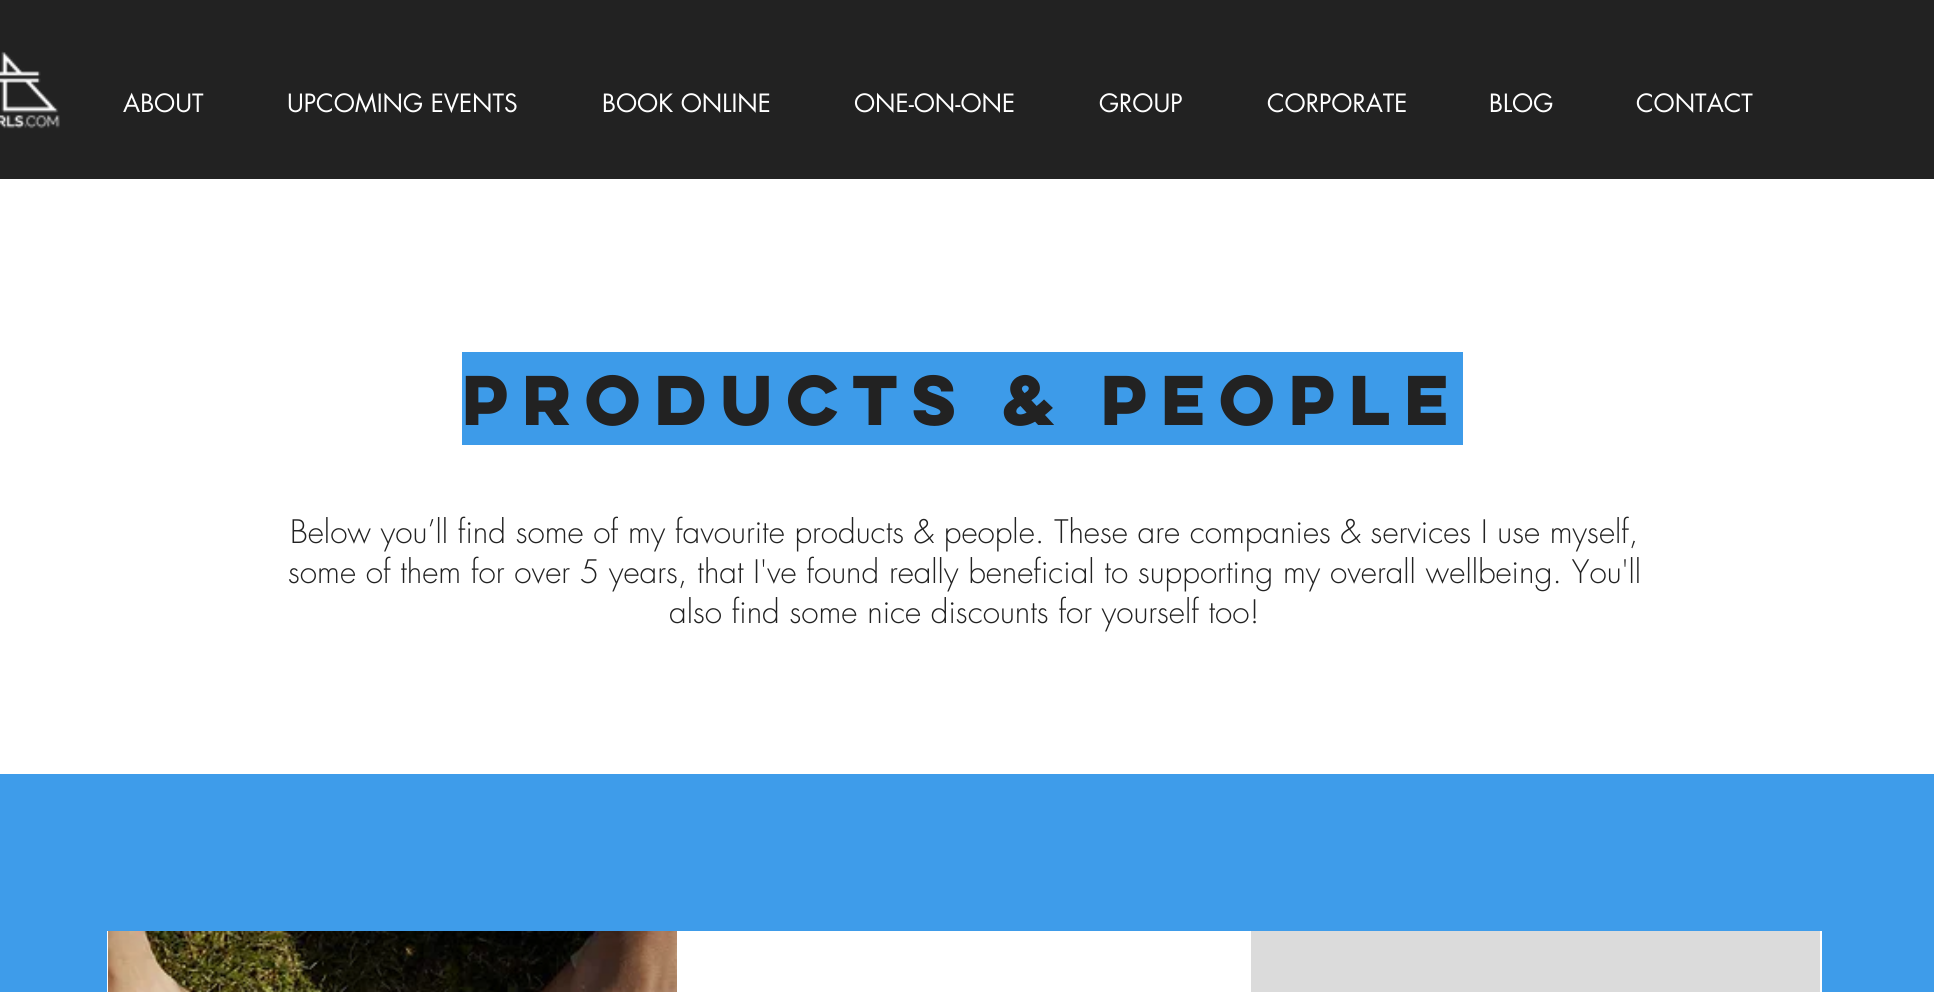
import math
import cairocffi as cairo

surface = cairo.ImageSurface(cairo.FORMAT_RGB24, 1934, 992)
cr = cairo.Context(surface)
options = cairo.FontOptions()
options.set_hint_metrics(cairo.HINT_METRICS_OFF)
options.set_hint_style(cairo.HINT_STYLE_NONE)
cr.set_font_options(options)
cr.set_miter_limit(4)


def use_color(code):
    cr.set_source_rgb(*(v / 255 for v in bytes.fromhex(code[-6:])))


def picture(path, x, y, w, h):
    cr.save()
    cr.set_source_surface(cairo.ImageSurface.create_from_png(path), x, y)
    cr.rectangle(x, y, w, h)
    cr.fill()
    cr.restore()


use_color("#ffffff")
cr.paint()
use_color("#222222")
cr.rectangle(0, 0, 1934, 179)
cr.fill()
picture("img1.png", 0, 51, 60, 78)
cr.select_font_face("futura")
cr.set_font_size(24.5)
use_color("#ffffff")
cr.move_to(123, 112)
cr.show_text("ABOUT")
cr.move_to(287, 112)
cr.show_text("UPCOMING EVENTS")
cr.move_to(602, 112)
cr.show_text("BOOK ONLINE")
cr.move_to(854, 112)
cr.show_text("ONE-ON-ONE")
cr.move_to(1099, 112)
cr.show_text("GROUP")
cr.move_to(1267, 112)
cr.show_text("CORPORATE")
cr.move_to(1489, 112)
cr.show_text("BLOG")
cr.move_to(1636, 112)
cr.show_text("CONTACT")
use_color("#3d9be9")
cr.rectangle(462, 352, 1001, 93)
cr.fill()
cr.select_font_face("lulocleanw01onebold", cairo.FONT_SLANT_NORMAL, cairo.FONT_WEIGHT_BOLD)
cr.set_font_size(63)
use_color("#222222")
cr.move_to(462, 425)
cr.show_text("Products & People")
cr.select_font_face("futura Light")
cr.set_font_size(31.5)
cr.move_to(290, 543)
cr.show_text("Below you’ll find some of my favourite products & people. These are companies & services I use myself,")
cr.move_to(288, 583)
cr.show_text("some of them for over 5 years, that I've found really beneficial to supporting my overall wellbeing. You'll")
cr.move_to(669, 623)
cr.show_text("also find some nice discounts for yourself too!")
use_color("#3e9cea")
cr.rectangle(0, 774, 1934, 218)
cr.fill()
use_color("#ffffff")
cr.rectangle(107, 931, 1715, 61)
cr.fill()
picture("img2.png", 108, 931, 569, 61)
use_color("#dbdbdb")
cr.rectangle(1251, 931, 569, 61)
cr.fill()
surface.write_to_png("result.png")
